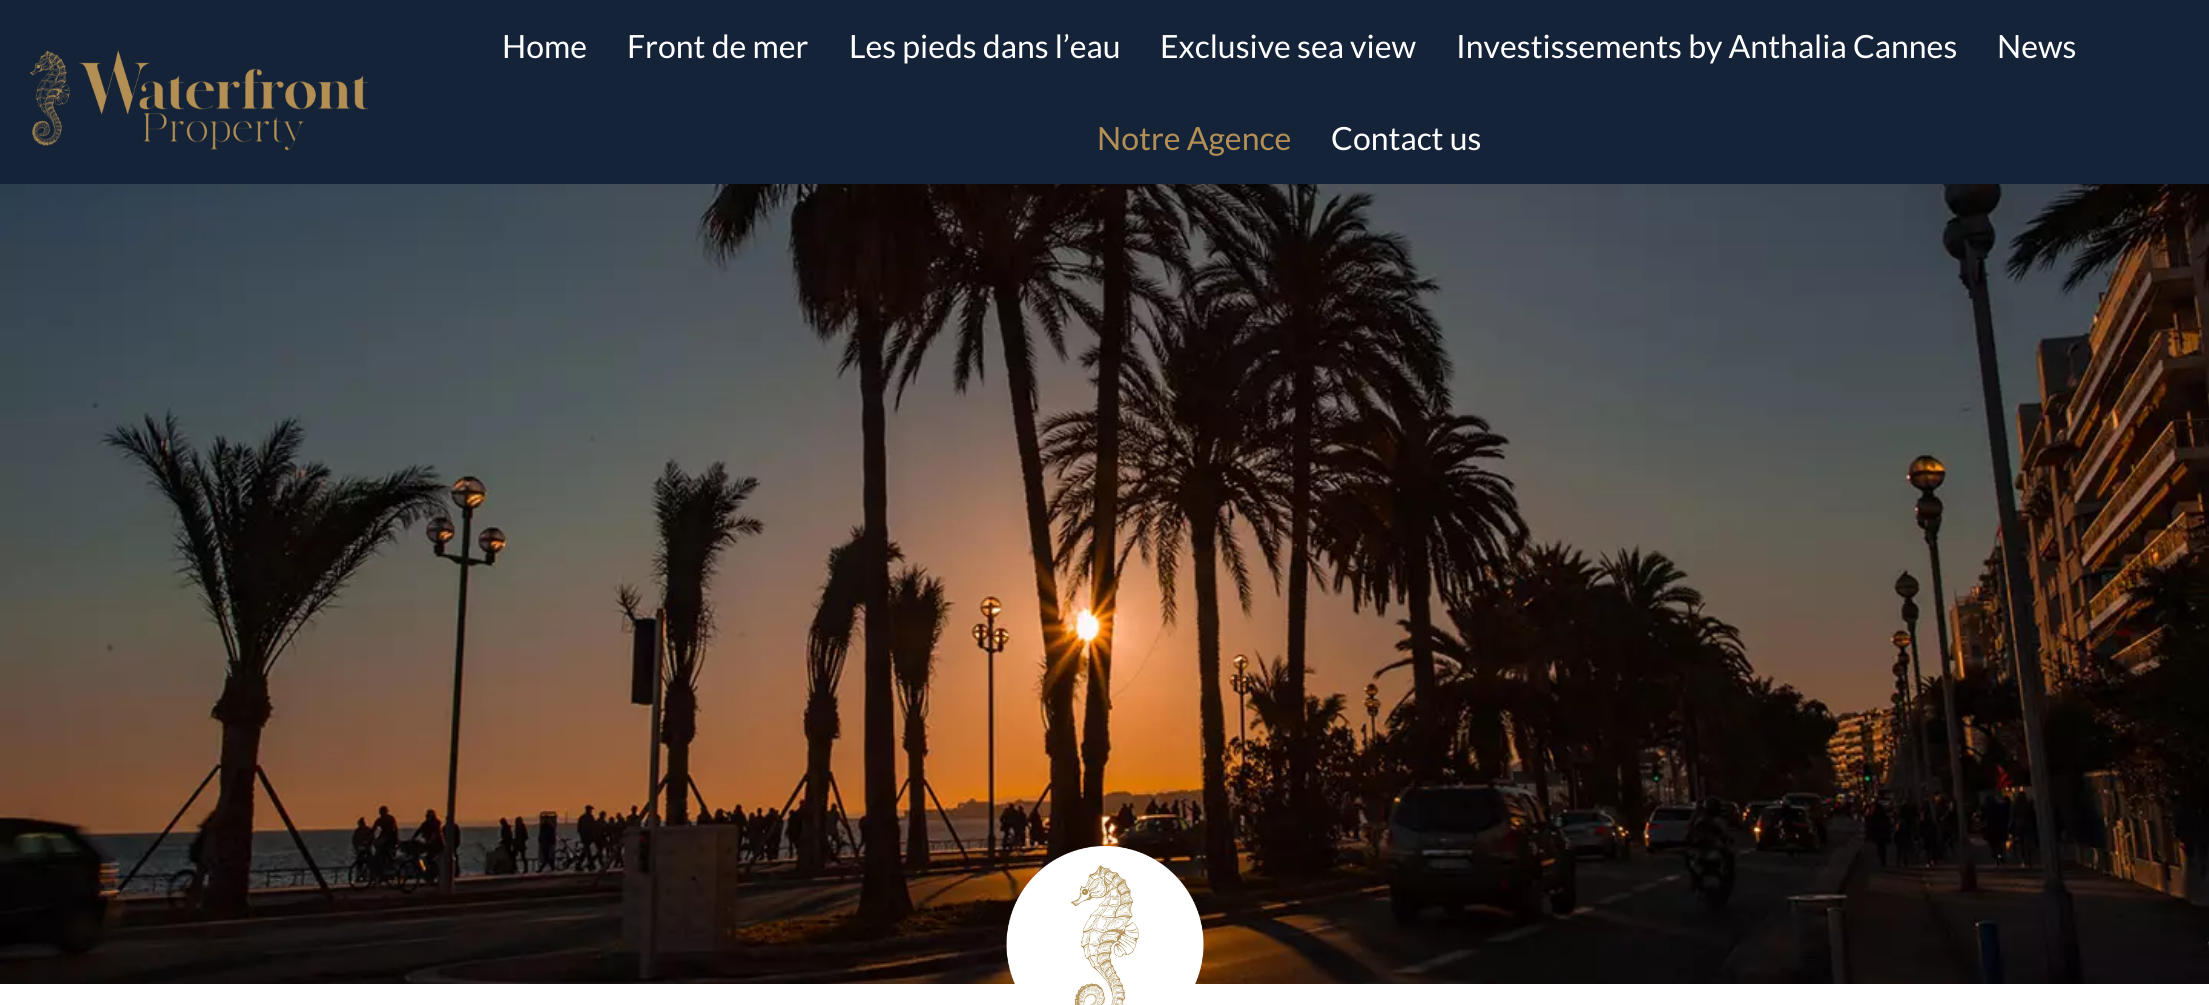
import math
import cairocffi as cairo

surface = cairo.ImageSurface(cairo.FORMAT_RGB24, 2209, 1005)
cr = cairo.Context(surface)
options = cairo.FontOptions()
options.set_hint_metrics(cairo.HINT_METRICS_OFF)
options.set_hint_style(cairo.HINT_STYLE_NONE)
cr.set_font_options(options)
cr.set_miter_limit(4)


def use_color(code):
    cr.set_source_rgb(*(v / 255 for v in bytes.fromhex(code[-6:])))


def picture(path, x, y, w, h):
    cr.save()
    cr.set_source_surface(cairo.ImageSurface.create_from_png(path), x, y)
    cr.rectangle(x, y, w, h)
    cr.fill()
    cr.restore()


use_color("#ffffff")
cr.paint()
use_color("#142338")
cr.rectangle(0, 0, 2209, 184)
cr.fill()
picture("img1.png", 30, 50, 338, 100)
cr.select_font_face("Lato")
cr.set_font_size(32)
use_color("#ffffff")
cr.move_to(502, 58)
cr.show_text("Home")
cr.move_to(627, 58)
cr.show_text("Front de mer")
cr.move_to(849, 58)
cr.show_text("Les pieds dans l’eau")
cr.move_to(1160, 58)
cr.show_text("Exclusive sea view")
cr.move_to(1456, 58)
cr.show_text("Investissements by Anthalia Cannes")
cr.move_to(1997, 58)
cr.show_text("News")
use_color("#b38f54")
cr.move_to(1097, 150)
cr.show_text("Notre Agence")
use_color("#ffffff")
cr.move_to(1331, 150)
cr.show_text("Contact us")
picture("img2.png", 0, 184, 2209, 800)
picture("img3.png", 1006, 846, 198, 159)
surface.write_to_png("result.png")
